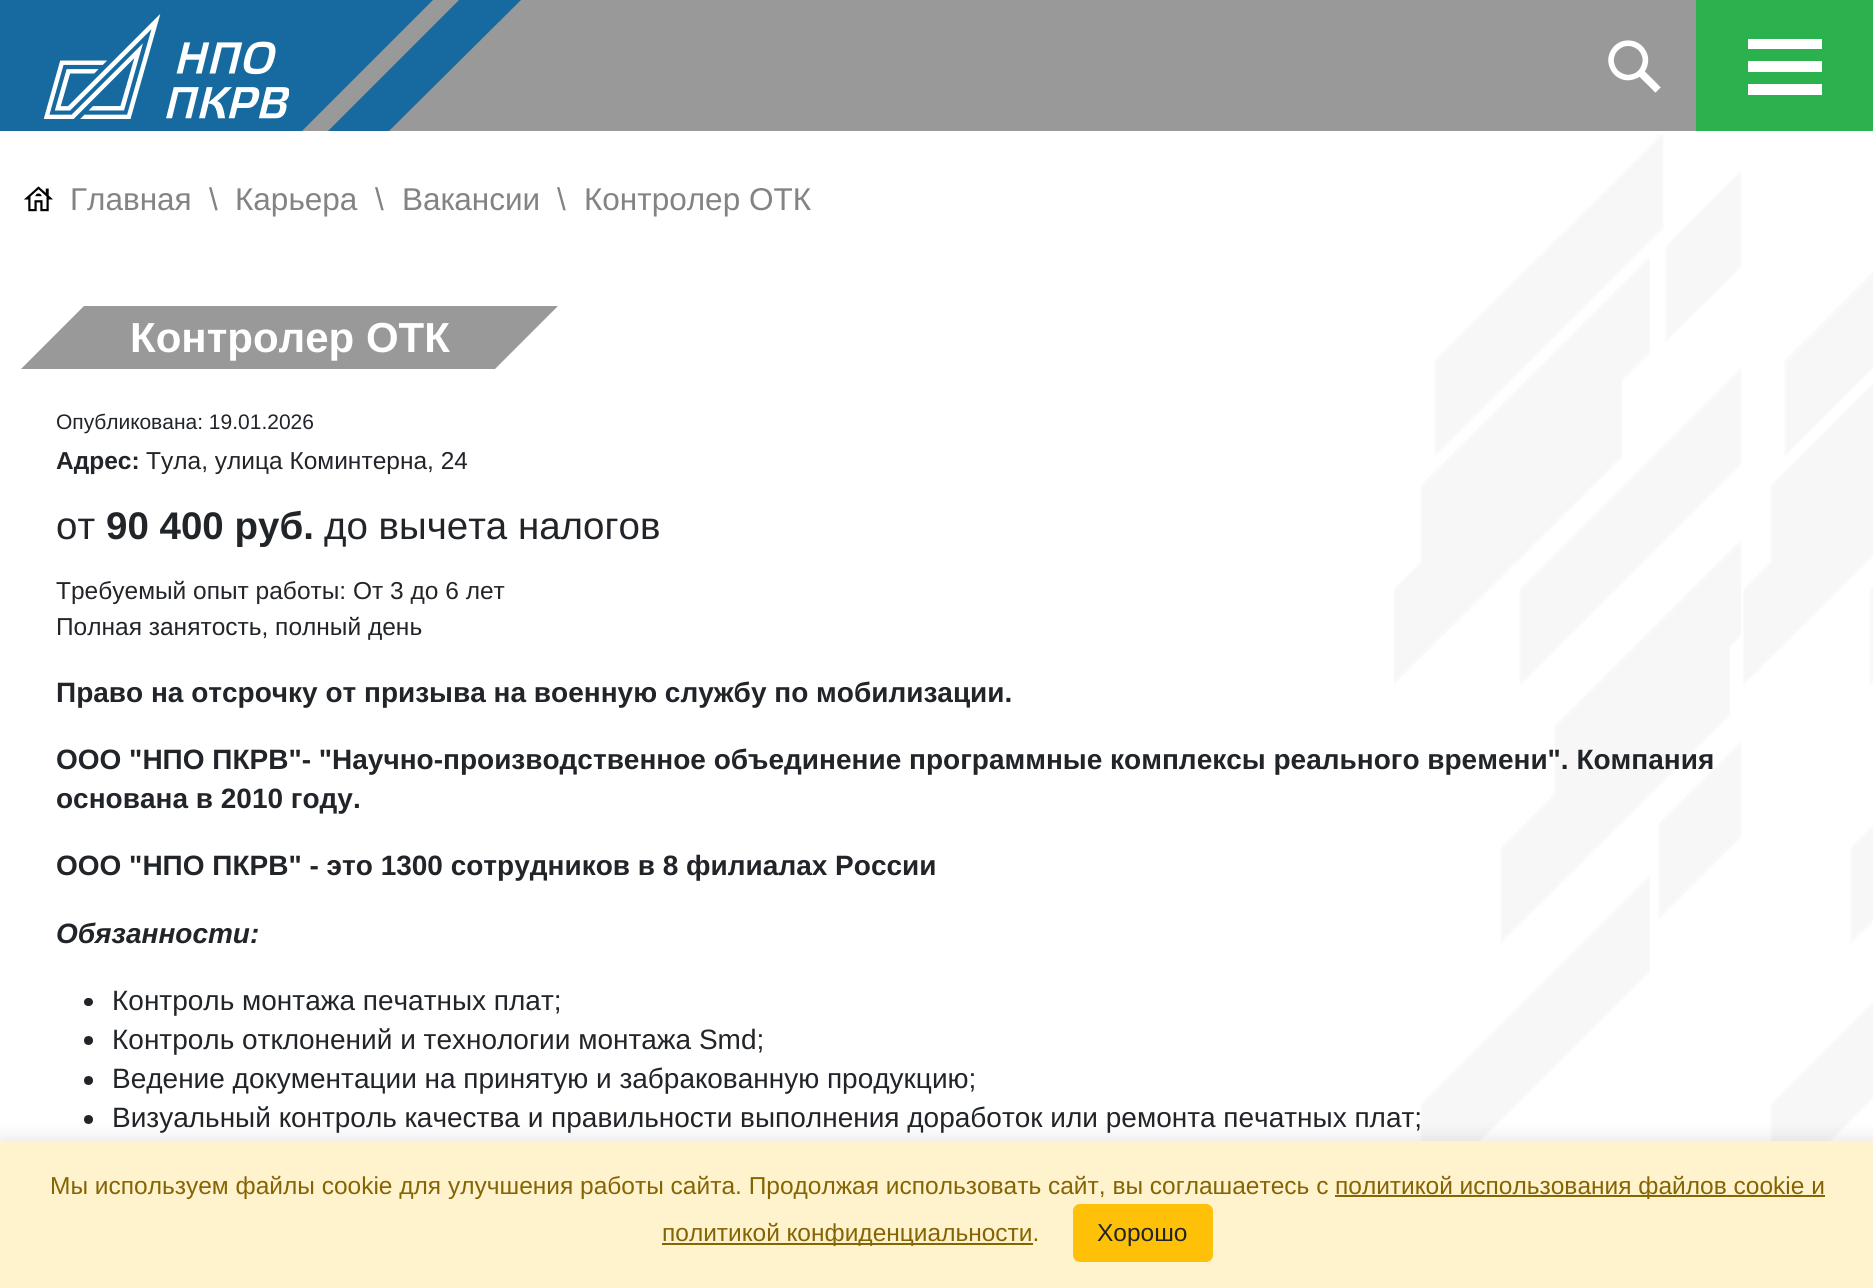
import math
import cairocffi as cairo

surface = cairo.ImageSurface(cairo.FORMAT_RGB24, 1873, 1288)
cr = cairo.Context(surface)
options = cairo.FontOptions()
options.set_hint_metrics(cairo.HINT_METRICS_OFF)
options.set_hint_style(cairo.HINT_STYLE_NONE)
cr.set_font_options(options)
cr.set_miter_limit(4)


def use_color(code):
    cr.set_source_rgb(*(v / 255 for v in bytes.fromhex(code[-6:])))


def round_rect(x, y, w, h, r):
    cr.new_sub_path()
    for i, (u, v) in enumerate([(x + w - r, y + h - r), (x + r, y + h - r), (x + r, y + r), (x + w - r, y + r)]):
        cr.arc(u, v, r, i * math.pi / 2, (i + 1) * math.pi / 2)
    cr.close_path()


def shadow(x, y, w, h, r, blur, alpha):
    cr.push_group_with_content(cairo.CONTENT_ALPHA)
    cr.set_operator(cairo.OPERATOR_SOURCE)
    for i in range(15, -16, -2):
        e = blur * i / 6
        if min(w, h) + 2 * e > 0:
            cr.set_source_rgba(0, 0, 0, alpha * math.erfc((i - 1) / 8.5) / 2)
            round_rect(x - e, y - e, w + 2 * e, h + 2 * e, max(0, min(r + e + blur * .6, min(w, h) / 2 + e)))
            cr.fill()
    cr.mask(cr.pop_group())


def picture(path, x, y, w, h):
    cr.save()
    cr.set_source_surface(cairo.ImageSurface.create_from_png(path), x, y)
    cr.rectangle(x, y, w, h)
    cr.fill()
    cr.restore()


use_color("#ffffff")
cr.paint()
use_color("#999999")
cr.rectangle(302, 0, 1394, 131)
cr.fill()
use_color("#166aa0")
cr.new_path()
cr.move_to(-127, 0)
cr.line_to(433, 0)
cr.line_to(302, 131)
cr.line_to(-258, 131)
cr.close_path()
cr.fill()
cr.new_path()
cr.move_to(459, 0)
cr.line_to(521, 0)
cr.line_to(389, 131)
cr.line_to(328, 131)
cr.close_path()
cr.fill()
use_color("#2bb14e")
cr.rectangle(1696, 0, 177, 131)
cr.fill()
use_color("#ffffff")
cr.rectangle(1748, 39, 74, 10)
cr.fill()
cr.rectangle(1748, 61, 74, 11)
cr.fill()
cr.rectangle(1748, 84, 74, 11)
cr.fill()
picture("img1.png", 44, 14, 245, 105)
picture("img2.png", 1608, 40, 53, 53)
picture("img3.png", 24, 186, 29, 26)
cr.select_font_face("Liberation Sans")
cr.set_font_size(31.5)
use_color("#838383")
cr.move_to(70, 210)
cr.show_text("Главная")
cr.move_to(209, 210)
cr.show_text("\\")
cr.move_to(235, 210)
cr.show_text("Карьера")
cr.move_to(375, 210)
cr.show_text("\\")
cr.move_to(402, 210)
cr.show_text("Вакансии")
cr.move_to(557, 210)
cr.show_text("\\")
cr.move_to(584, 210)
cr.show_text("Контролер ОТК")
cr.select_font_face("Liberation Sans", cairo.FONT_SLANT_NORMAL, cairo.FONT_WEIGHT_BOLD)
cr.set_font_size(28)
use_color("#212529")
cr.move_to(56, 769)
cr.show_text("ООО \"НПО ПКРВ\"- \"Научно-производственное объединение программные комплексы реального времени\". Компания")
cr.select_font_face("Liberation Sans")
cr.move_to(112, 1127)
cr.show_text("Визуальный контроль качества и правильности выполнения доработок или ремонта печатных плат;")
picture("img4.png", 1394, 135, 479, 1006)
use_color("#999999")
cr.new_path()
cr.move_to(84, 306)
cr.line_to(558, 306)
cr.line_to(495, 369)
cr.line_to(21, 369)
cr.close_path()
cr.fill()
cr.select_font_face("Liberation Sans", cairo.FONT_SLANT_NORMAL, cairo.FONT_WEIGHT_BOLD)
cr.set_font_size(42)
use_color("#ffffff")
cr.move_to(130, 352)
cr.show_text("Контролер ОТК")
cr.select_font_face("Liberation Sans")
cr.set_font_size(21)
use_color("#212529")
cr.move_to(56, 429)
cr.show_text("Опубликована: 19.01.2026")
cr.select_font_face("Liberation Sans", cairo.FONT_SLANT_NORMAL, cairo.FONT_WEIGHT_BOLD)
cr.set_font_size(24.5)
cr.move_to(56, 469)
cr.show_text("Адрес:")
cr.select_font_face("Liberation Sans")
cr.move_to(146, 469)
cr.show_text("Тула, улица Коминтерна, 24")
cr.set_font_size(38.5)
cr.move_to(56, 539)
cr.show_text("от")
cr.select_font_face("Liberation Sans", cairo.FONT_SLANT_NORMAL, cairo.FONT_WEIGHT_BOLD)
cr.move_to(106, 539)
cr.show_text("90 400 руб.")
cr.select_font_face("Liberation Sans")
cr.move_to(324, 539)
cr.show_text("до вычета налогов")
cr.set_font_size(24.5)
cr.move_to(56, 599)
cr.show_text("Требуемый опыт работы: От 3 до 6 лет")
cr.move_to(56, 635)
cr.show_text("Полная занятость, полный день")
cr.select_font_face("Liberation Sans", cairo.FONT_SLANT_NORMAL, cairo.FONT_WEIGHT_BOLD)
cr.set_font_size(28)
cr.move_to(56, 702)
cr.show_text("Право на отсрочку от призыва на военную службу по мобилизации.")
cr.move_to(56, 808)
cr.show_text("основана в 2010 году.")
cr.move_to(56, 875)
cr.show_text("ООО \"НПО ПКРВ\" - это 1300 сотрудников в 8 филиалах России")
cr.select_font_face("Liberation Sans", cairo.FONT_SLANT_ITALIC, cairo.FONT_WEIGHT_BOLD)
cr.move_to(56, 943)
cr.show_text("Обязанности:")
round_rect(84, 998, 9, 8, 4)
cr.fill()
cr.select_font_face("Liberation Sans")
cr.move_to(112, 1010)
cr.show_text("Контроль монтажа печатных плат;")
cr.new_path()
cr.arc(88.5, 1040.5, 4.5, 0, 2 * math.pi)
cr.fill()
cr.move_to(112, 1049)
cr.show_text("Контроль отклонений и технологии монтажа Smd;")
cr.new_path()
cr.arc(88.5, 1080.5, 4.5, 0, 2 * math.pi)
cr.fill()
cr.move_to(112, 1088)
cr.show_text("Ведение документации на принятую и забракованную продукцию;")
cr.new_path()
cr.arc(88.5, 1119.5, 4.5, 0, 2 * math.pi)
cr.fill()
use_color("#000000")
shadow(0, 1138, 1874, 147, 0, 9, 0.1)
use_color("#fff3cd")
cr.rectangle(0, 1141, 1873, 147)
cr.fill()
cr.set_font_size(24.5)
use_color("#856404")
cr.move_to(50, 1194)
cr.show_text("Мы используем файлы cookie для улучшения работы сайта. Продолжая использовать сайт, вы соглашаетесь с")
cr.rectangle(1335, 1195, 490, 2)
cr.fill()
cr.move_to(1335, 1194)
cr.show_text("политикой использования файлов cookie и")
cr.rectangle(662, 1243, 371, 2)
cr.fill()
cr.move_to(662, 1241)
cr.show_text("политикой конфиденциальности.")
use_color("#ffc107")
round_rect(1073, 1204, 140, 58, 7)
cr.fill()
use_color("#212529")
cr.move_to(1097, 1241)
cr.show_text("Хорошо")
surface.write_to_png("result.png")
